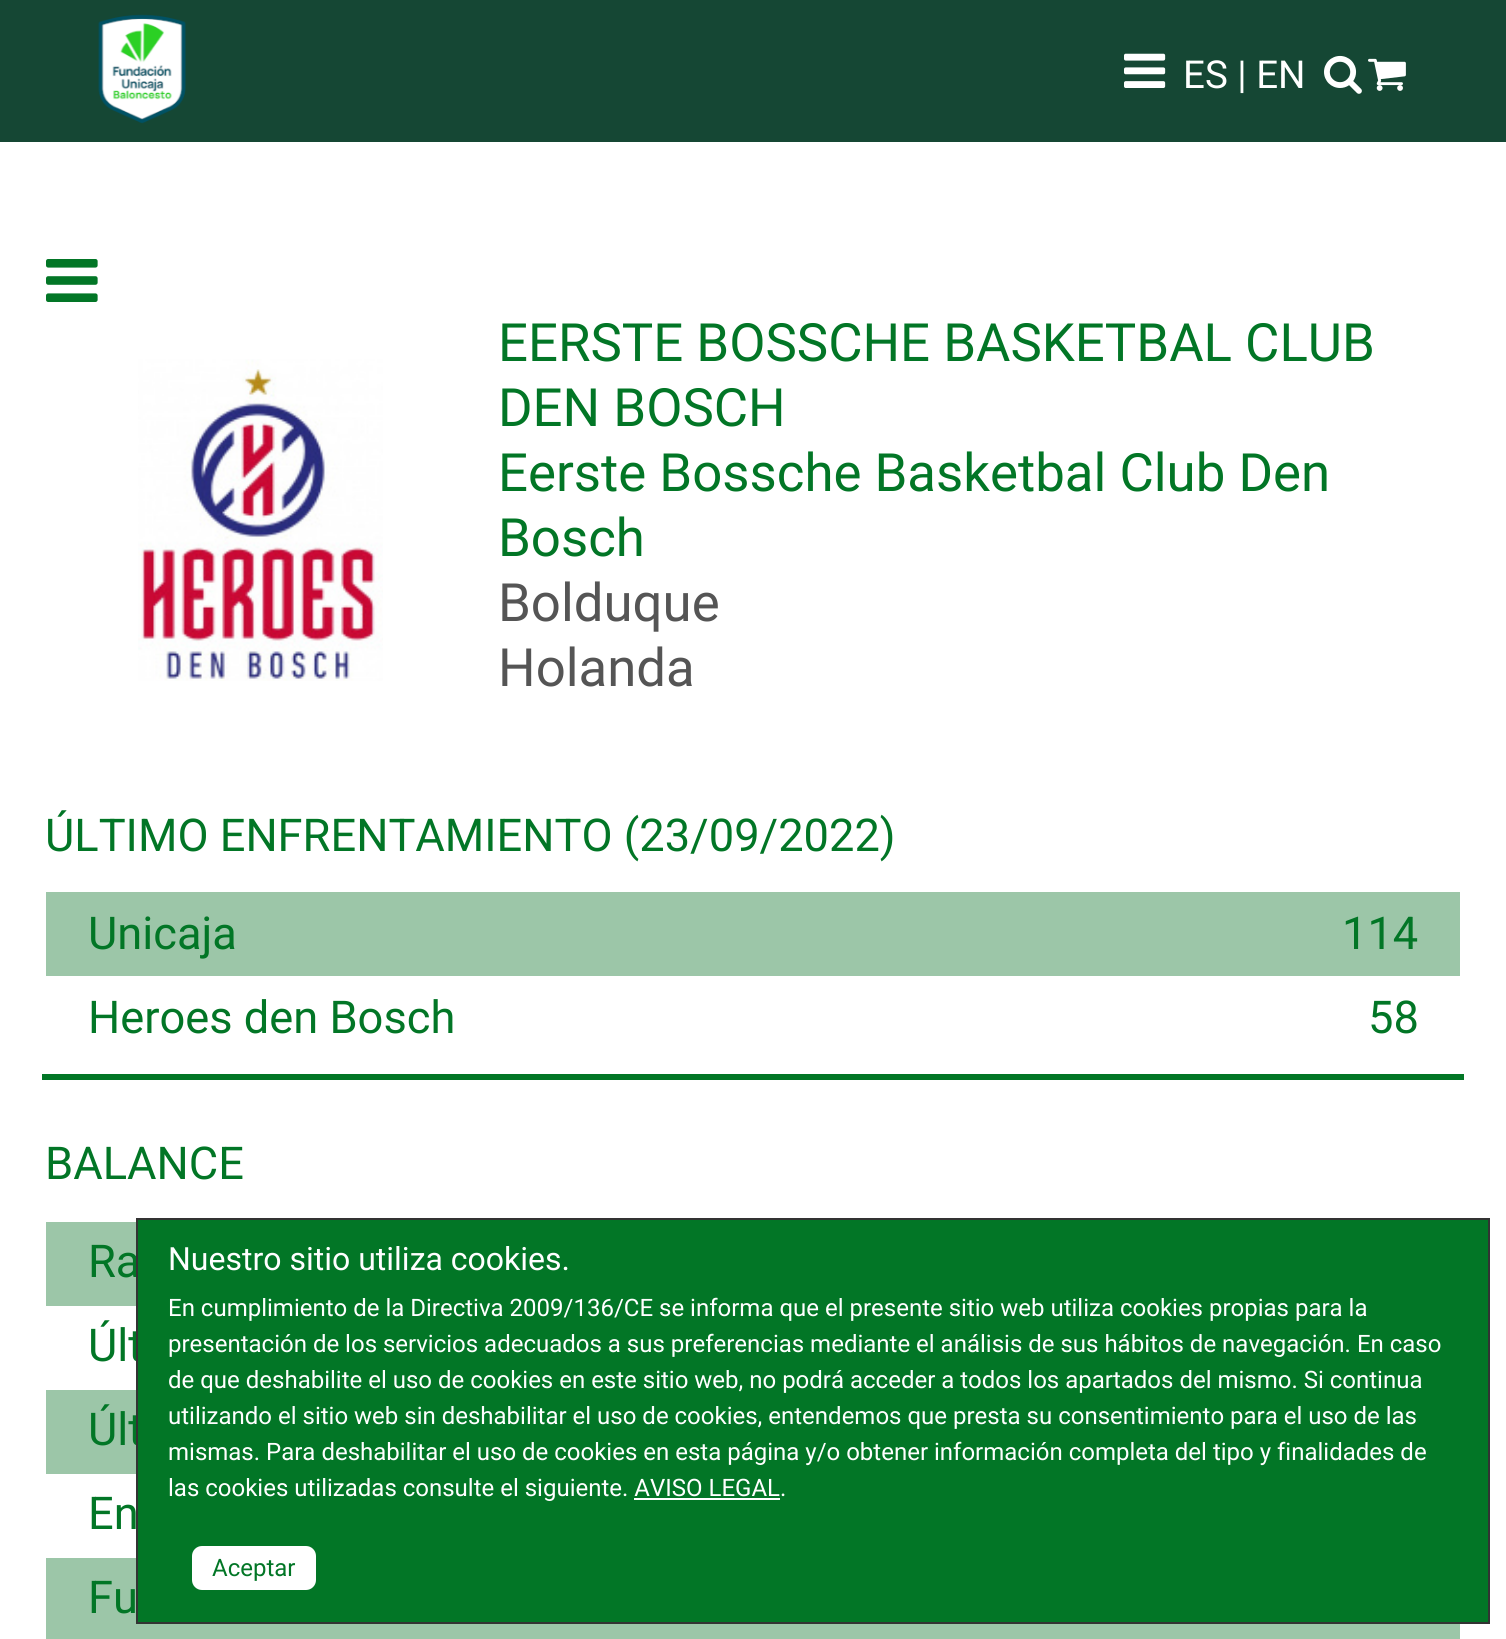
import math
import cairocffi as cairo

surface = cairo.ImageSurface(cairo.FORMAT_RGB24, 1506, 1639)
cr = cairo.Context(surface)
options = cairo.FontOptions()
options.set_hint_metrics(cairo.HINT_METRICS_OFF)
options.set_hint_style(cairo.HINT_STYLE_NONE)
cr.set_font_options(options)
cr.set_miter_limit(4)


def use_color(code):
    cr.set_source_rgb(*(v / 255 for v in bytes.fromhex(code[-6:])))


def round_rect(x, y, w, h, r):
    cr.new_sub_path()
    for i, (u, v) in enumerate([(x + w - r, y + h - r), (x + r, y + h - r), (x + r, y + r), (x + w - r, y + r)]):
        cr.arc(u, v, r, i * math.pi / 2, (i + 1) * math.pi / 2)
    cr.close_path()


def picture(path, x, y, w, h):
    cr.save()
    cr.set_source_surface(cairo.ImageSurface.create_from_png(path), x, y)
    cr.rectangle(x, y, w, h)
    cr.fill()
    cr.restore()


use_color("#ffffff")
cr.paint()
use_color("#154734")
cr.rectangle(0, 0, 1506, 142)
cr.fill()
picture("img1.png", 98, 14, 88, 110)
picture("img2.png", 1124, 53, 42, 35)
cr.select_font_face("Roboto")
cr.set_font_size(38.5)
use_color("#ffffff")
cr.move_to(1183, 88)
cr.show_text("ES | EN")
picture("img3.png", 1324, 55, 38, 39)
picture("img4.png", 1368, 58, 38, 33)
picture("img5.png", 46, 259, 52, 43)
picture("img6.png", 138, 359, 245, 322)
cr.set_font_size(52.75)
use_color("#027626")
cr.move_to(498, 361)
cr.show_text("EERSTE BOSSCHE BASKETBAL CLUB")
cr.move_to(498, 426)
cr.show_text("DEN BOSCH")
cr.move_to(498, 491)
cr.show_text("Eerste Bossche Basketbal Club Den")
cr.move_to(498, 556)
cr.show_text("Bosch")
use_color("#555555")
cr.move_to(498, 621)
cr.show_text("Bolduque")
cr.move_to(498, 686)
cr.show_text("Holanda")
cr.set_font_size(45.2)
use_color("#027626")
cr.move_to(45, 851)
cr.show_text("ÚLTIMO ENFRENTAMIENTO (23/09/2022)")
use_color("#9cc6a8")
cr.rectangle(46, 892, 1414, 84)
cr.fill()
use_color("#027626")
cr.move_to(88, 949)
cr.show_text("Unicaja")
cr.move_to(1342, 949)
cr.show_text("114")
cr.rectangle(42, 1074, 1422, 6)
cr.fill()
cr.move_to(88, 1033)
cr.show_text("Heroes den Bosch")
cr.move_to(1368, 1033)
cr.show_text("58")
cr.move_to(45, 1179)
cr.show_text("BALANCE")
use_color("#9cc6a8")
cr.rectangle(46, 1222, 90, 84)
cr.fill()
use_color("#027626")
cr.move_to(88, 1277)
cr.show_text("Ra")
cr.move_to(88, 1361)
cr.show_text("Últ")
use_color("#9cc6a8")
cr.rectangle(46, 1390, 90, 84)
cr.fill()
use_color("#027626")
cr.move_to(88, 1445)
cr.show_text("Últ")
cr.move_to(88, 1529)
cr.show_text("En")
use_color("#9cc6a8")
cr.rectangle(46, 1558, 1414, 81)
cr.fill()
use_color("#027626")
cr.move_to(88, 1613)
cr.show_text("Fu")
cr.rectangle(137, 1219, 1352, 404)
cr.fill_preserve()
use_color("#333333")
cr.stroke()
cr.set_font_size(32)
use_color("#ffffff")
cr.move_to(168, 1270)
cr.show_text("Nuestro sitio utiliza cookies.")
cr.set_font_size(24)
cr.move_to(168, 1316)
cr.show_text("En cumplimiento de la Directiva 2009/136/CE se informa que el presente sitio web utiliza cookies propias para la")
cr.move_to(168, 1352)
cr.show_text("presentación de los servicios adecuados a sus preferencias mediante el análisis de sus hábitos de navegación. En caso")
cr.move_to(168, 1388)
cr.show_text("de que deshabilite el uso de cookies en este sitio web, no podrá acceder a todos los apartados del mismo. Si continua")
cr.move_to(168, 1424)
cr.show_text("utilizando el sitio web sin deshabilitar el uso de cookies, entendemos que presta su consentimiento para el uso de las")
cr.move_to(168, 1460)
cr.show_text("mismas. Para deshabilitar el uso de cookies en esta página y/o obtener información completa del tipo y finalidades de")
cr.move_to(168, 1496)
cr.show_text("las cookies utilizadas consulte el siguiente. AVISO LEGAL.")
cr.rectangle(634, 1498, 146, 2)
cr.fill()
round_rect(190, 1544, 128, 48, 12)
cr.fill_preserve()
use_color("#027626")
cr.set_line_width(4)
cr.stroke()
cr.move_to(212, 1576)
cr.show_text("Aceptar")
surface.write_to_png("result.png")
